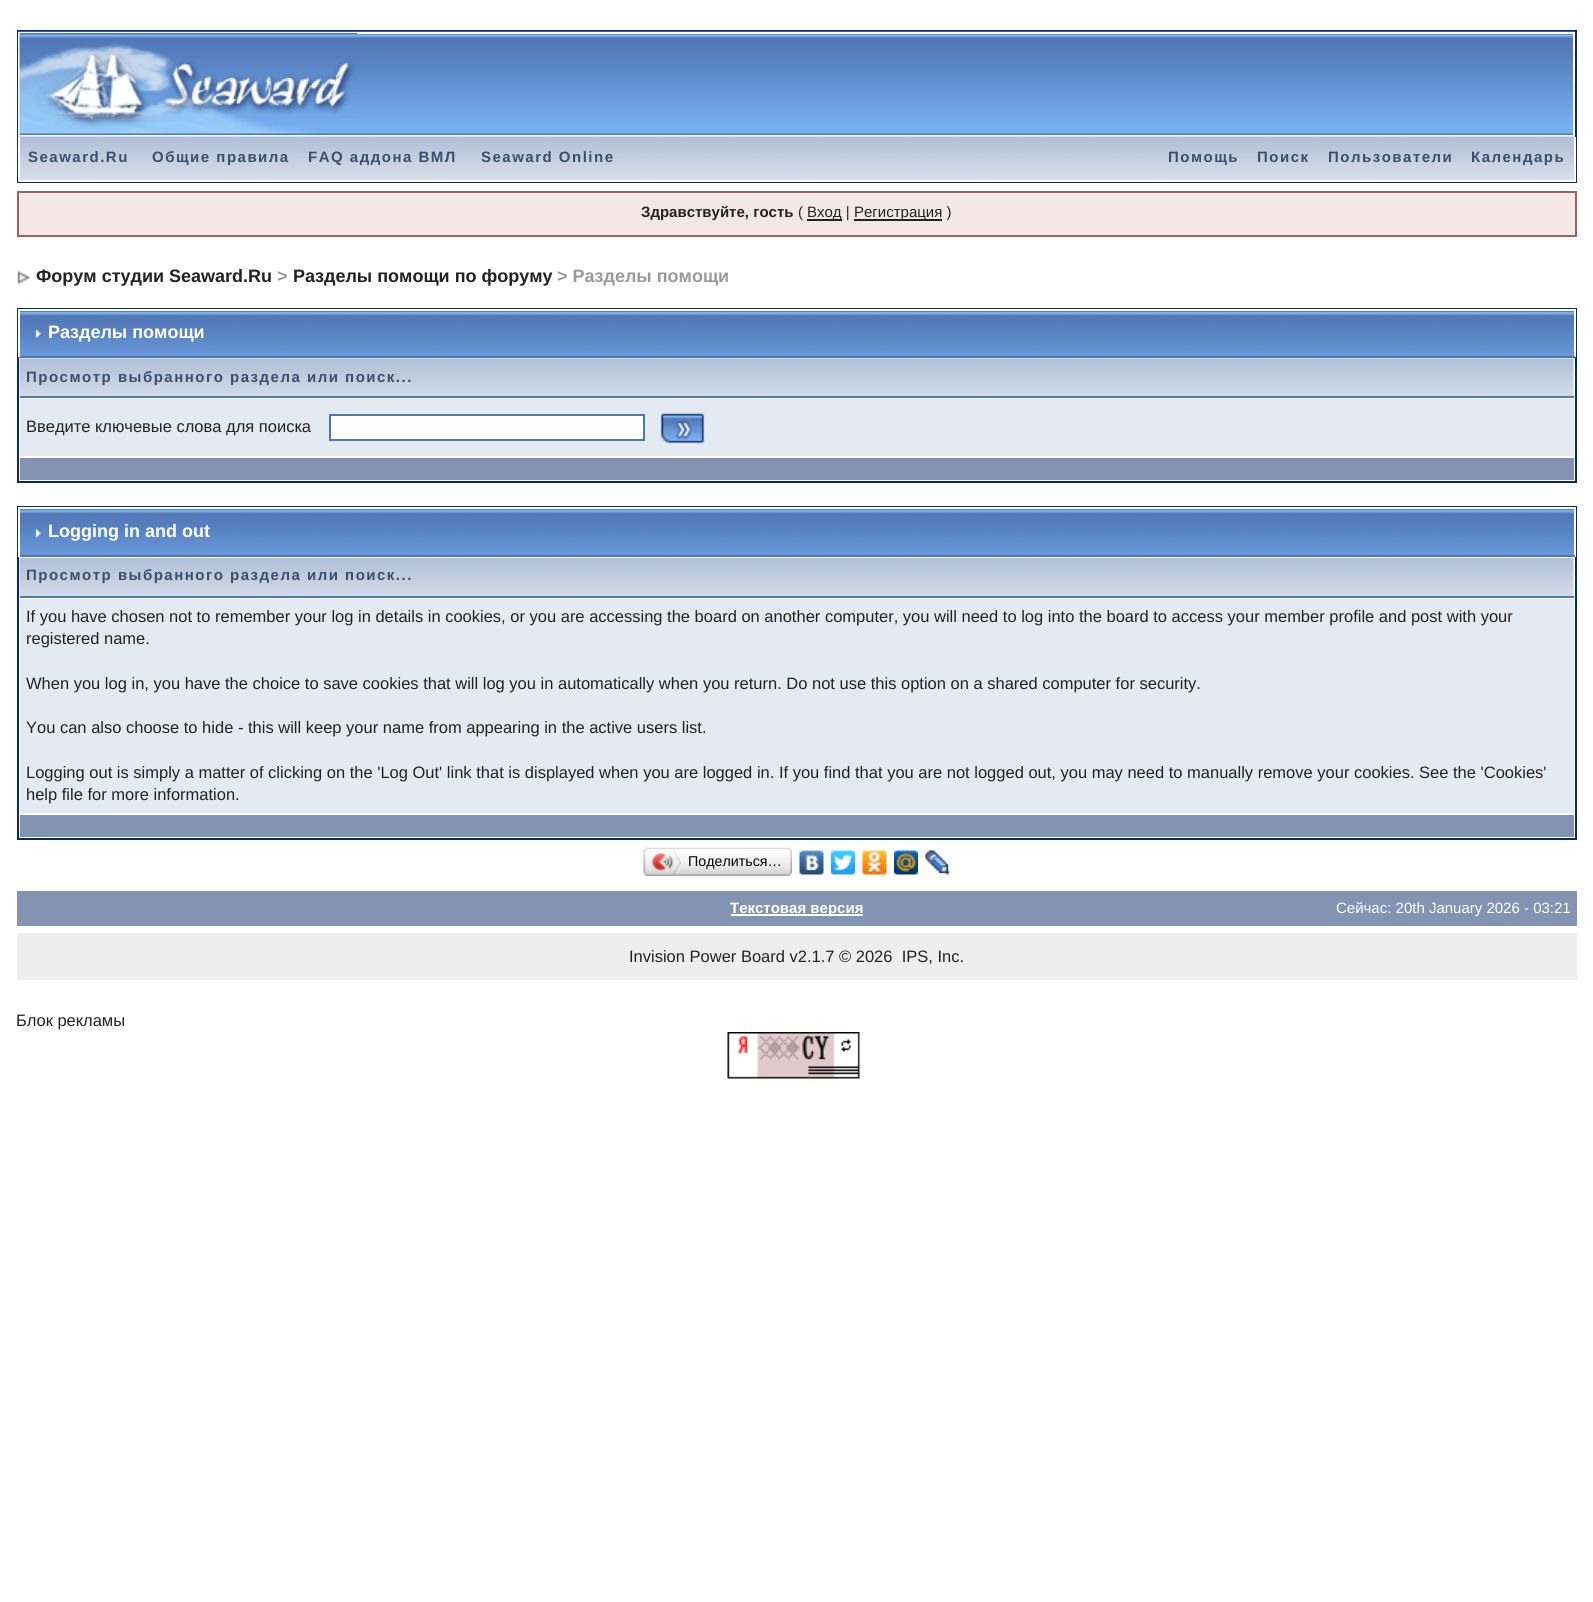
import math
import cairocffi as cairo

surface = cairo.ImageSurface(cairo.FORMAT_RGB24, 1593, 1602)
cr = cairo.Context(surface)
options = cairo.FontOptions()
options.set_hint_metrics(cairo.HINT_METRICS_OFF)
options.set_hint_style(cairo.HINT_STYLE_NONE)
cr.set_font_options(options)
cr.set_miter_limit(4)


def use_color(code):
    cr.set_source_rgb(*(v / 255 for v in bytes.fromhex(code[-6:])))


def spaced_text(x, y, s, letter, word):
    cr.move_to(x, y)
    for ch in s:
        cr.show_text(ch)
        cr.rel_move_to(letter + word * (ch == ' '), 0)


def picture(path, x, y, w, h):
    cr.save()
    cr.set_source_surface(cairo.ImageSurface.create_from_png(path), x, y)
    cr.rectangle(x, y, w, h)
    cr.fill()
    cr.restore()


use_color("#ffffff")
cr.paint()
cr.rectangle(18, 31, 1558, 151)
use_color("#072a66")
cr.stroke()
picture("img1.png", 18, 31, 1557, 104)
cr.rectangle(19, 33, 1555, 103)
use_color("#ffffff")
cr.stroke()
picture("img2.png", 19, 33, 338, 102)
picture("img3.png", 18, 136, 1557, 44)
cr.rectangle(1574, 137, 2, 45)
cr.fill()
cr.rectangle(18, 180, 1557, 2)
cr.fill()
cr.rectangle(18, 137, 2, 45)
cr.fill()
cr.select_font_face("Liberation Sans", cairo.FONT_SLANT_NORMAL, cairo.FONT_WEIGHT_BOLD)
cr.set_font_size(15)
use_color("#3a4f6c")
spaced_text(28, 162, "Seaward.Ru", 1.5, 0)
spaced_text(152, 162, "Общие правила", 1.5, 0)
spaced_text(308, 162, "FAQ аддона ВМЛ", 1.5, 0)
spaced_text(481, 162, "Seaward Online", 1.5, 0)
spaced_text(1168, 162, "Помощь", 1.5, 0)
spaced_text(1257, 162, "Поиск", 1.5, 0)
spaced_text(1328, 162, "Пользователи", 1.5, 0)
spaced_text(1471, 162, "Календарь", 1.5, 0)
use_color("#f4e7ea")
cr.rectangle(18, 192, 1558, 44)
cr.fill_preserve()
use_color("#986265")
cr.stroke()
use_color("#222222")
cr.move_to(641, 217)
cr.show_text("Здравствуйте, гость")
cr.select_font_face("Liberation Sans")
cr.move_to(798, 217)
cr.show_text("(")
cr.rectangle(807, 219, 35, 2)
cr.fill()
cr.move_to(807, 217)
cr.show_text("Вход |")
cr.rectangle(854, 219, 88, 2)
cr.fill()
cr.move_to(854, 217)
cr.show_text("Регистрация )")
picture("img4.png", 17, 271, 14, 13)
cr.select_font_face("Liberation Sans", cairo.FONT_SLANT_NORMAL, cairo.FONT_WEIGHT_BOLD)
cr.set_font_size(18)
cr.move_to(36, 282)
cr.show_text("Форум студии Seaward.Ru")
use_color("#999999")
cr.move_to(277, 282)
cr.show_text(">")
use_color("#222222")
cr.move_to(293, 282)
cr.show_text("Разделы помощи по форуму")
use_color("#999999")
cr.move_to(557, 282)
cr.show_text("> Разделы помощи")
cr.rectangle(18, 309, 1558, 173)
use_color("#072a66")
cr.stroke()
picture("img5.png", 20, 311, 1554, 45)
use_color("#ffffff")
cr.rectangle(18, 309, 1557, 2)
cr.fill()
cr.rectangle(1575, 309, 1, 48)
cr.fill()
use_color("#5176b5")
cr.rectangle(18, 356, 1557, 2)
cr.fill()
use_color("#ffffff")
cr.rectangle(18, 309, 2, 48)
cr.fill()
picture("img6.png", 35, 329, 6, 9)
cr.move_to(48, 338)
cr.show_text("Разделы помощи")
picture("img7.png", 19, 358, 1555, 40)
use_color("#5176b5")
cr.rectangle(20, 396, 1554, 2)
cr.fill()
cr.set_font_size(15)
use_color("#3a4f6c")
spaced_text(26, 382, "Просмотр выбранного раздела или поиск...", 1.5, 0)
use_color("#e4eaf2")
cr.rectangle(20, 399, 1554, 57)
cr.fill()
cr.select_font_face("Liberation Sans")
cr.set_font_size(16.5)
use_color("#222222")
cr.move_to(26, 432)
cr.show_text("Введите ключевые слова для поиска")
use_color("#ffffff")
cr.rectangle(330, 415, 314, 25)
cr.fill_preserve()
use_color("#4c77b6")
cr.stroke()
picture("img8.png", 660, 412, 45, 32)
use_color("#8394b2")
cr.rectangle(20, 458, 1554, 22)
cr.fill()
cr.rectangle(18, 507, 1558, 332)
use_color("#072a66")
cr.stroke()
picture("img9.png", 20, 509, 1554, 46)
use_color("#ffffff")
cr.rectangle(18, 507, 1557, 2)
cr.fill()
cr.rectangle(1575, 507, 1, 50)
cr.fill()
use_color("#5176b5")
cr.rectangle(18, 555, 1557, 2)
cr.fill()
use_color("#ffffff")
cr.rectangle(18, 507, 2, 50)
cr.fill()
picture("img10.png", 35, 529, 6, 9)
cr.select_font_face("Liberation Sans", cairo.FONT_SLANT_NORMAL, cairo.FONT_WEIGHT_BOLD)
cr.set_font_size(18)
cr.move_to(48, 537)
cr.show_text("Logging in and out")
picture("img11.png", 19, 558, 1555, 39)
use_color("#5176b5")
cr.rectangle(20, 596, 1554, 2)
cr.fill()
cr.set_font_size(15)
use_color("#3a4f6c")
spaced_text(26, 580, "Просмотр выбранного раздела или поиск...", 1.5, 0)
use_color("#e4eaf2")
cr.rectangle(20, 599, 1554, 214)
cr.fill()
cr.select_font_face("Liberation Sans")
cr.set_font_size(16.5)
use_color("#222222")
cr.move_to(26, 622)
cr.show_text("If you have chosen not to remember your log in details in cookies, or you are accessing the board on another computer, you will need to log into the board to access your member profile and post with your")
cr.move_to(26, 644)
cr.show_text("registered name.")
cr.move_to(26, 689)
cr.show_text("When you log in, you have the choice to save cookies that will log you in automatically when you return. Do not use this option on a shared computer for security.")
cr.move_to(26, 733)
cr.show_text("You can also choose to hide - this will keep your name from appearing in the active users list.")
cr.move_to(26, 778)
cr.show_text("Logging out is simply a matter of clicking on the 'Log Out' link that is displayed when you are logged in. If you find that you are not logged out, you may need to manually remove your cookies. See the 'Cookies'")
cr.move_to(26, 800)
cr.show_text("help file for more information.")
use_color("#8394b2")
cr.rectangle(20, 815, 1554, 22)
cr.fill()
picture("img12.png", 648, 847, 140, 29)
picture("img13.png", 643, 847, 5, 29)
picture("img14.png", 652, 849, 31, 26)
cr.set_font_size(14.25)
use_color("#000000")
cr.move_to(688, 866)
cr.show_text("Поделиться…")
picture("img15.png", 787, 847, 5, 29)
picture("img16.png", 799, 850, 25, 25)
picture("img17.png", 831, 850, 24, 25)
picture("img18.png", 862, 850, 25, 25)
picture("img19.png", 894, 850, 24, 25)
picture("img20.png", 925, 850, 25, 25)
use_color("#8394b2")
cr.rectangle(17, 891, 1560, 35)
cr.fill()
use_color("#ffffff")
cr.rectangle(731, 914, 132, 2)
cr.fill()
cr.select_font_face("Liberation Sans", cairo.FONT_SLANT_NORMAL, cairo.FONT_WEIGHT_BOLD)
cr.set_font_size(15)
cr.move_to(730, 913)
cr.show_text("Текстовая версия")
cr.select_font_face("Liberation Sans")
cr.move_to(1336, 913)
cr.show_text("Сейчас: 20th January 2026 - 03:21")
use_color("#eeeeee")
cr.rectangle(17, 933, 1560, 47)
cr.fill()
cr.set_font_size(16.5)
use_color("#222222")
cr.move_to(629, 962)
cr.show_text("Invision Power Board v2.1.7 © 2026  IPS, Inc.")
cr.move_to(16, 1026)
cr.show_text("Блок рекламы")
picture("img21.png", 727, 1032, 133, 47)
surface.write_to_png("result.png")
